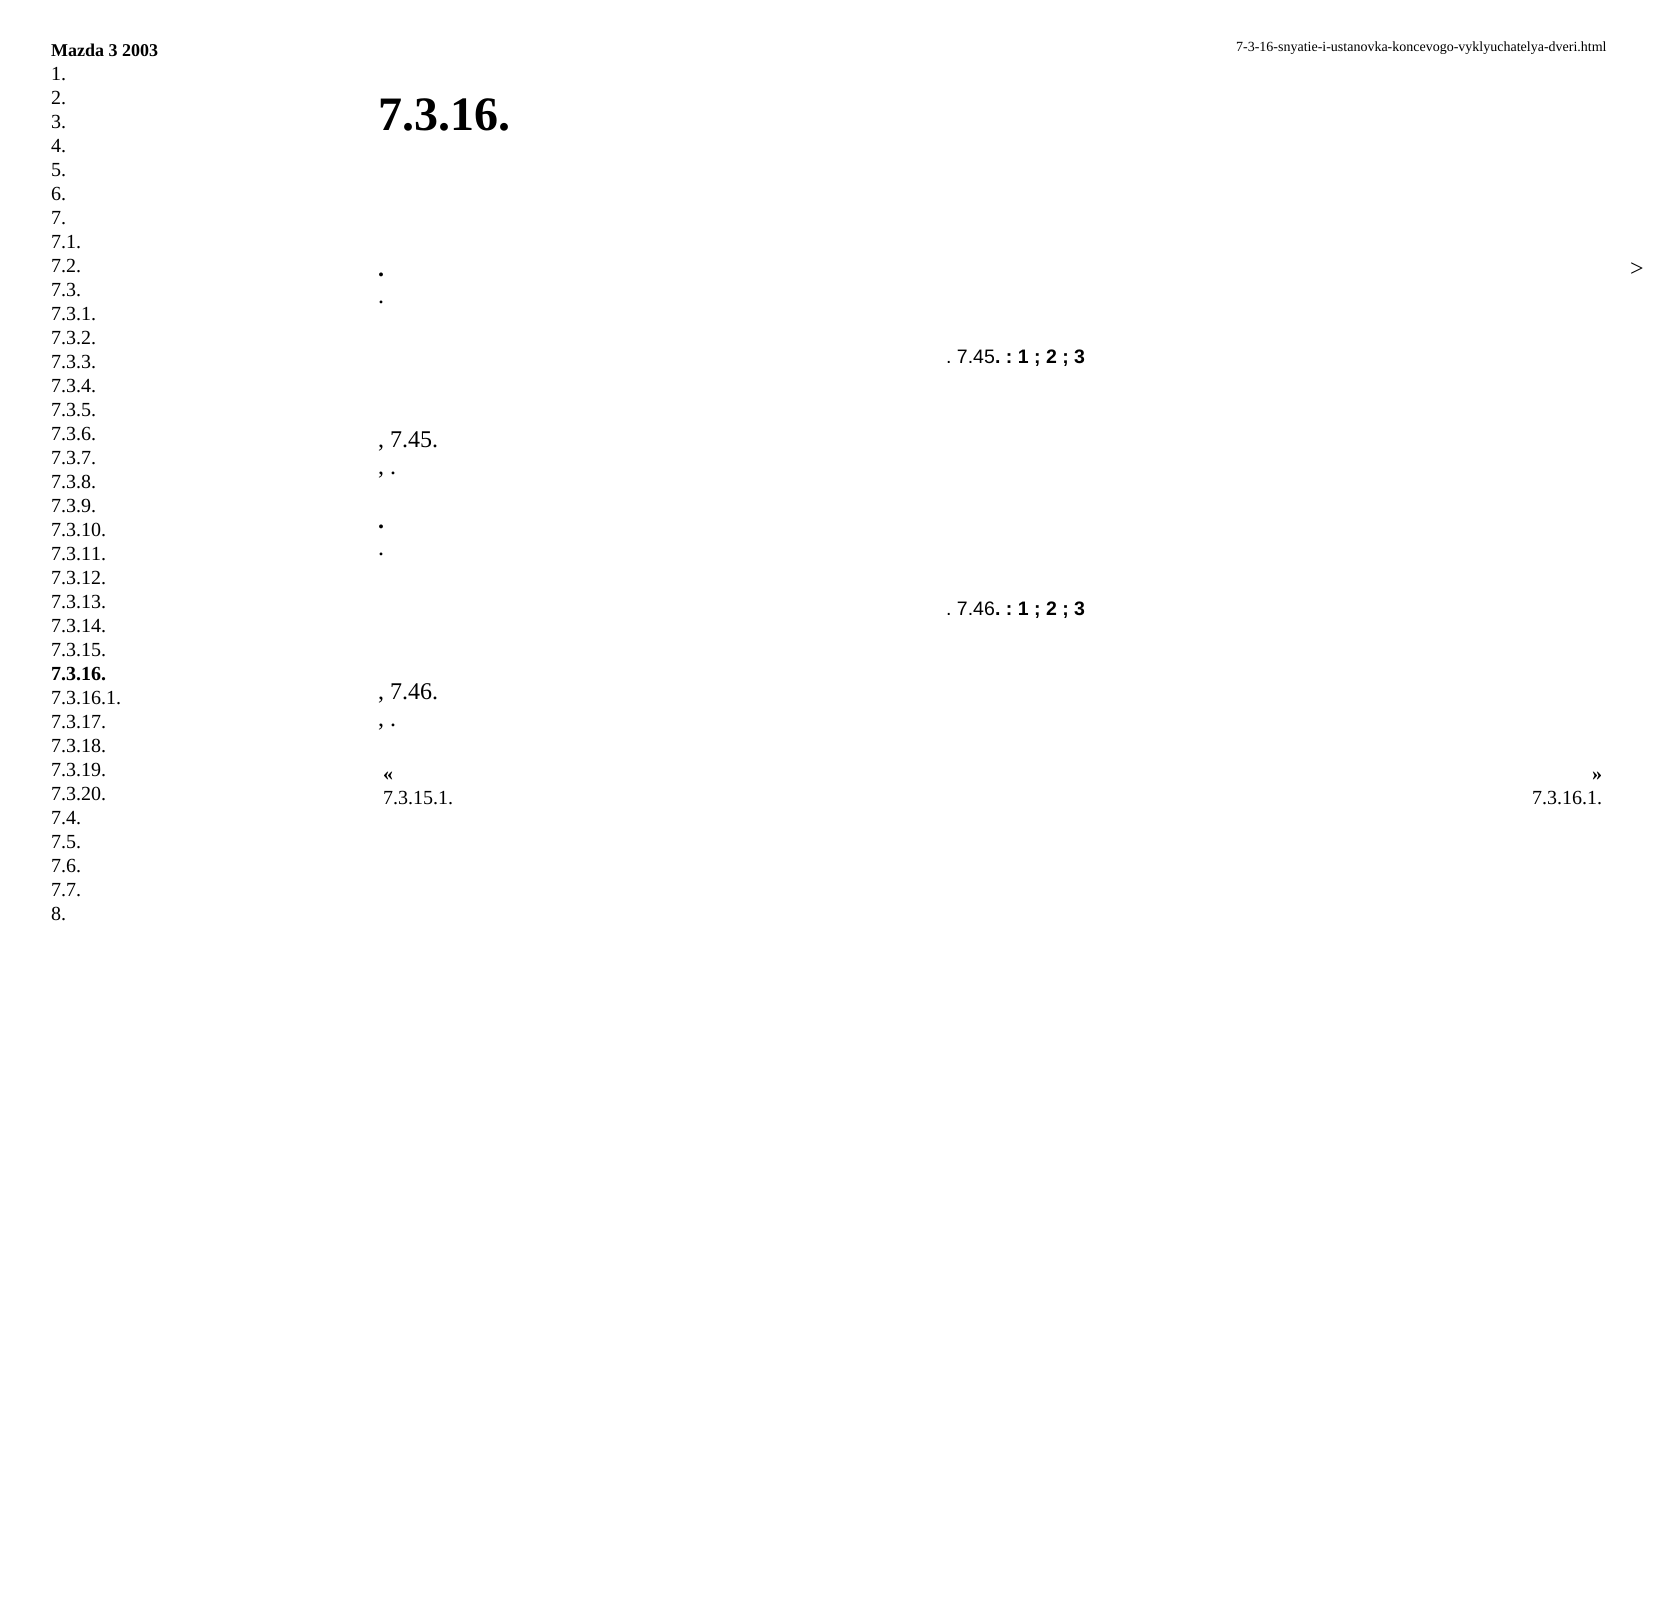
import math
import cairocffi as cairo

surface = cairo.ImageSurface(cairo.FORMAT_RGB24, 1668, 1612)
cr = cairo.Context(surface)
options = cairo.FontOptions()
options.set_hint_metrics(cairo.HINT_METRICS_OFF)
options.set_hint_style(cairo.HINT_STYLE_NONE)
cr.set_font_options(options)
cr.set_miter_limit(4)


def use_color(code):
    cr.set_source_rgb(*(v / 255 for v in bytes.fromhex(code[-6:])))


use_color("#ffffff")
cr.paint()
cr.select_font_face("Liberation Serif", cairo.FONT_SLANT_NORMAL, cairo.FONT_WEIGHT_BOLD)
cr.set_font_size(18)
use_color("#000000")
cr.move_to(51, 56)
cr.show_text("Mazda 3 2003")
cr.select_font_face("Liberation Serif")
cr.set_font_size(20)
cr.move_to(51, 80)
cr.show_text("1.")
cr.move_to(51, 104)
cr.show_text("2.")
cr.move_to(51, 128)
cr.show_text("3.")
cr.move_to(51, 152)
cr.show_text("4.")
cr.move_to(51, 176)
cr.show_text("5.")
cr.move_to(51, 200)
cr.show_text("6.")
cr.move_to(51, 224)
cr.show_text("7.")
cr.move_to(51, 248)
cr.show_text("7.1.")
cr.move_to(51, 272)
cr.show_text("7.2.")
cr.move_to(51, 296)
cr.show_text("7.3.")
cr.move_to(51, 320)
cr.show_text("7.3.1.")
cr.move_to(51, 344)
cr.show_text("7.3.2.")
cr.move_to(51, 368)
cr.show_text("7.3.3.")
cr.move_to(51, 392)
cr.show_text("7.3.4.")
cr.move_to(51, 416)
cr.show_text("7.3.5.")
cr.move_to(51, 440)
cr.show_text("7.3.6.")
cr.move_to(51, 464)
cr.show_text("7.3.7.")
cr.move_to(51, 488)
cr.show_text("7.3.8.")
cr.move_to(51, 512)
cr.show_text("7.3.9.")
cr.move_to(51, 536)
cr.show_text("7.3.10.")
cr.move_to(51, 560)
cr.show_text("7.3.11.")
cr.move_to(51, 584)
cr.show_text("7.3.12.")
cr.move_to(51, 608)
cr.show_text("7.3.13.")
cr.move_to(51, 632)
cr.show_text("7.3.14.")
cr.move_to(51, 656)
cr.show_text("7.3.15.")
cr.select_font_face("Liberation Serif", cairo.FONT_SLANT_NORMAL, cairo.FONT_WEIGHT_BOLD)
cr.move_to(51, 680)
cr.show_text("7.3.16.")
cr.select_font_face("Liberation Serif")
cr.move_to(51, 704)
cr.show_text("7.3.16.1.")
cr.move_to(51, 728)
cr.show_text("7.3.17.")
cr.move_to(51, 752)
cr.show_text("7.3.18.")
cr.move_to(51, 776)
cr.show_text("7.3.19.")
cr.move_to(51, 800)
cr.show_text("7.3.20.")
cr.move_to(51, 824)
cr.show_text("7.4.")
cr.move_to(51, 848)
cr.show_text("7.5.")
cr.move_to(51, 872)
cr.show_text("7.6.")
cr.move_to(51, 896)
cr.show_text("7.7.")
cr.move_to(51, 920)
cr.show_text("8.")
cr.set_font_size(14)
cr.move_to(1236, 51)
cr.show_text("7-3-16-snyatie-i-ustanovka-koncevogo-vyklyuchatelya-dveri.html")
cr.select_font_face("Liberation Serif", cairo.FONT_SLANT_NORMAL, cairo.FONT_WEIGHT_BOLD)
cr.set_font_size(48)
cr.move_to(378, 130)
cr.show_text("7.3.16.")
cr.set_font_size(24)
cr.move_to(378, 276)
cr.show_text(".")
cr.select_font_face("Liberation Serif")
cr.move_to(378, 303)
cr.show_text(".")
cr.select_font_face("Liberation Sans")
cr.set_font_size(19.5)
cr.move_to(946, 363)
cr.show_text(". 7.45")
cr.select_font_face("Liberation Sans", cairo.FONT_SLANT_NORMAL, cairo.FONT_WEIGHT_BOLD)
cr.move_to(995, 363)
cr.show_text(". : 1 ; 2 ; 3")
cr.select_font_face("Liberation Serif")
cr.set_font_size(24)
cr.move_to(378, 447)
cr.show_text(", 7.45.")
cr.move_to(378, 474)
cr.show_text(", .")
cr.select_font_face("Liberation Serif", cairo.FONT_SLANT_NORMAL, cairo.FONT_WEIGHT_BOLD)
cr.move_to(378, 528)
cr.show_text(".")
cr.select_font_face("Liberation Serif")
cr.move_to(378, 555)
cr.show_text(".")
cr.select_font_face("Liberation Sans")
cr.set_font_size(19.5)
cr.move_to(946, 615)
cr.show_text(". 7.46")
cr.select_font_face("Liberation Sans", cairo.FONT_SLANT_NORMAL, cairo.FONT_WEIGHT_BOLD)
cr.move_to(995, 615)
cr.show_text(". : 1 ; 2 ; 3")
cr.select_font_face("Liberation Serif")
cr.set_font_size(24)
cr.move_to(378, 699)
cr.show_text(", 7.46.")
cr.move_to(378, 726)
cr.show_text(", .")
cr.select_font_face("Liberation Serif", cairo.FONT_SLANT_NORMAL, cairo.FONT_WEIGHT_BOLD)
cr.set_font_size(20)
cr.move_to(383, 780)
cr.show_text("«")
cr.select_font_face("Liberation Serif")
cr.move_to(383, 804)
cr.show_text("7.3.15.1.")
cr.select_font_face("Liberation Serif", cairo.FONT_SLANT_NORMAL, cairo.FONT_WEIGHT_BOLD)
cr.move_to(1592, 780)
cr.show_text("»")
cr.select_font_face("Liberation Serif")
cr.move_to(1532, 804)
cr.show_text("7.3.16.1.")
cr.set_font_size(24)
cr.move_to(1630, 276)
cr.show_text(">")
surface.write_to_png("result.png")
